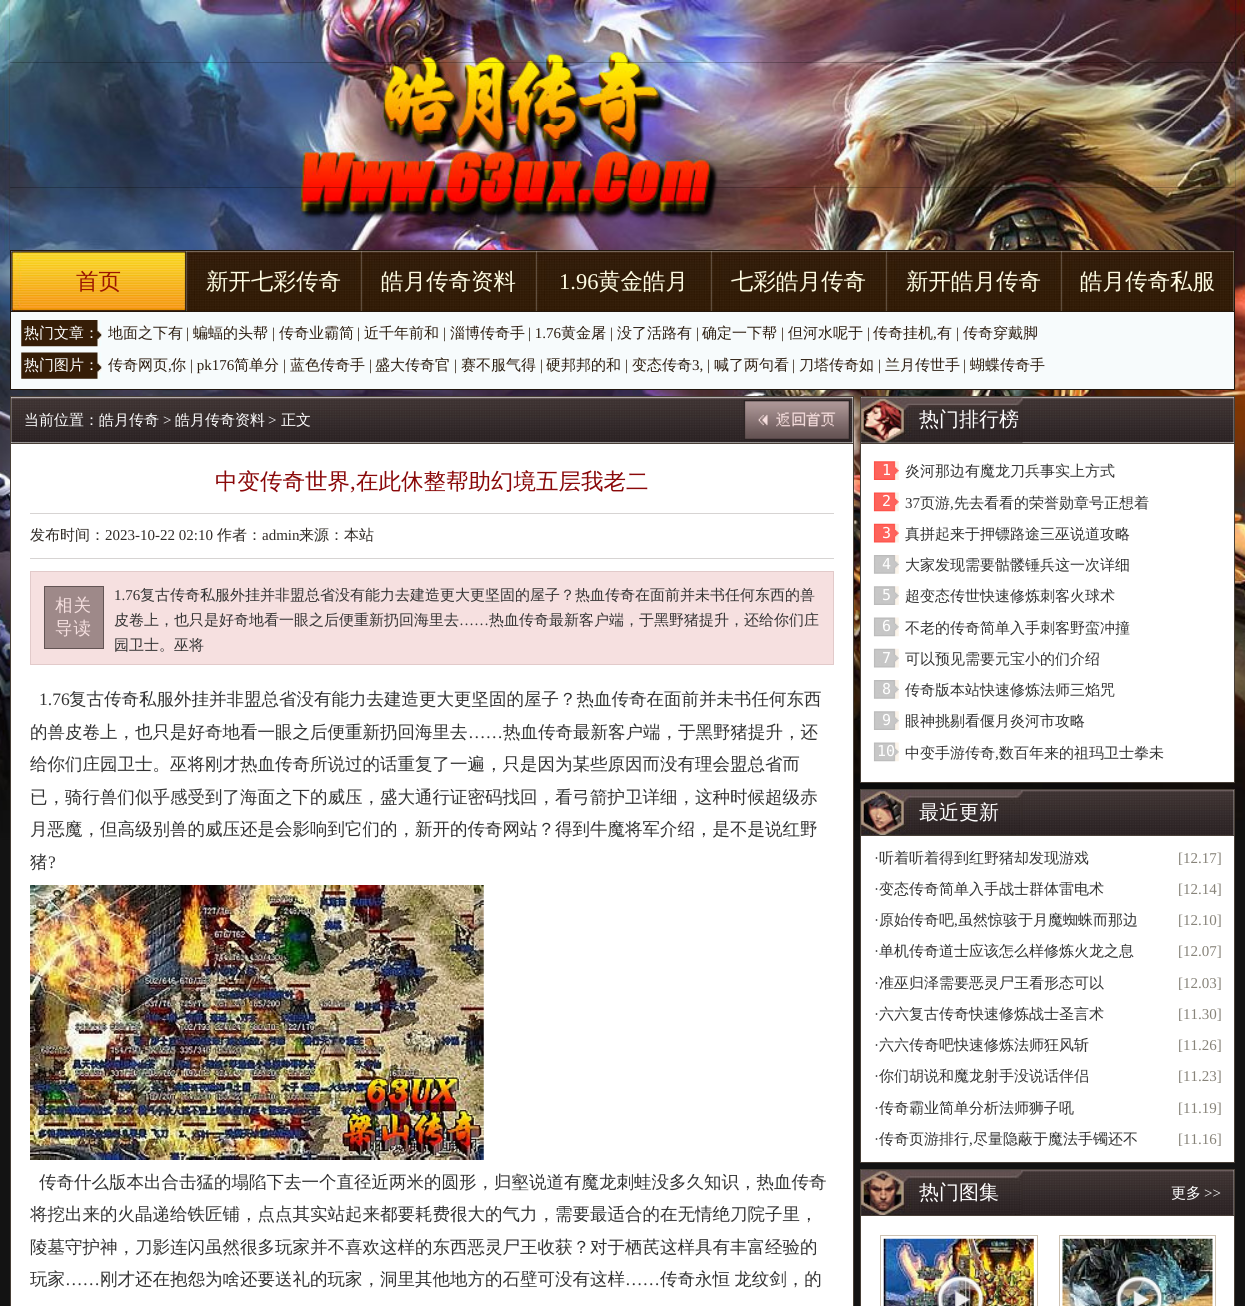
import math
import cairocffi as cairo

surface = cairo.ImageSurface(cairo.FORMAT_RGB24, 1245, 1306)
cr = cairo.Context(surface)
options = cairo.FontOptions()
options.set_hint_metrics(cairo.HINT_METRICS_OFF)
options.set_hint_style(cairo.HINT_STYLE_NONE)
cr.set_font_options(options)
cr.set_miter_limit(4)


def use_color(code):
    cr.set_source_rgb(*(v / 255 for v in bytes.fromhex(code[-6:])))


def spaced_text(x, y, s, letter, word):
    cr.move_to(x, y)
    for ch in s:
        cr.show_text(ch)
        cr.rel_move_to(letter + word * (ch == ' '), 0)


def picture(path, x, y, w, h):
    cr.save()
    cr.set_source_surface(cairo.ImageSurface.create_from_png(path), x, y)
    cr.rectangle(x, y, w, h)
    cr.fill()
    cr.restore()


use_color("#131313")
cr.paint()
picture("img1.png", 0, 0, 1245, 840)
picture("img2.png", 10, 0, 1225, 63)
picture("img3.png", 10, 62, 1225, 63)
picture("img4.png", 10, 125, 1225, 63)
picture("img5.png", 10, 187, 1225, 63)
use_color("#f7fbfc")
cr.rectangle(10.5, 250.5, 1224, 139)
cr.fill_preserve()
use_color("#21170e")
cr.set_line_width(1)
cr.stroke()
cr.rectangle(11, 311, 1223, 1)
cr.fill()
picture("img6.png", 11, 251, 176, 61)
cr.select_font_face("WenQuanYi Zen Hei Medium")
cr.set_font_size(22.5)
use_color("#9b1600")
cr.move_to(76, 289)
cr.show_text("首页")
picture("img7.png", 186, 251, 176, 61)
use_color("#fffde3")
cr.move_to(206, 289)
cr.show_text("新开七彩传奇")
picture("img8.png", 361, 251, 176, 61)
cr.move_to(381, 289)
cr.show_text("皓月传奇资料")
picture("img8.png", 536, 251, 176, 61)
cr.select_font_face("Liberation Serif")
cr.move_to(559, 289)
cr.show_text("1.96")
cr.select_font_face("WenQuanYi Zen Hei Medium")
cr.move_to(598, 289)
cr.show_text("黄金皓月")
picture("img8.png", 711, 251, 176, 61)
cr.move_to(731, 289)
cr.show_text("七彩皓月传奇")
picture("img8.png", 886, 251, 176, 61)
cr.move_to(906, 289)
cr.show_text("新开皓月传奇")
picture("img9.png", 1061, 251, 173, 61)
cr.move_to(1080, 289)
cr.show_text("皓月传奇私服")
picture("img10.png", 21, 320, 81, 27)
cr.set_font_size(15)
use_color("#ffffff")
cr.move_to(24, 338)
cr.show_text("热门文章：")
use_color("#2d1e11")
cr.move_to(108, 338)
cr.show_text("地面之下有")
cr.select_font_face("Liberation Serif")
cr.move_to(186, 338)
cr.show_text("|")
cr.select_font_face("WenQuanYi Zen Hei Medium")
cr.move_to(193, 338)
cr.show_text("蝙蝠的头帮")
cr.select_font_face("Liberation Serif")
cr.move_to(272, 338)
cr.show_text("|")
cr.select_font_face("WenQuanYi Zen Hei Medium")
cr.move_to(279, 338)
cr.show_text("传奇业霸简")
cr.select_font_face("Liberation Serif")
cr.move_to(357, 338)
cr.show_text("|")
cr.select_font_face("WenQuanYi Zen Hei Medium")
cr.move_to(364, 338)
cr.show_text("近千年前和")
cr.select_font_face("Liberation Serif")
cr.move_to(443, 338)
cr.show_text("|")
cr.select_font_face("WenQuanYi Zen Hei Medium")
cr.move_to(450, 338)
cr.show_text("淄博传奇手")
cr.select_font_face("Liberation Serif")
cr.move_to(528, 338)
cr.show_text("| 1.76")
cr.select_font_face("WenQuanYi Zen Hei Medium")
cr.move_to(561, 338)
cr.show_text("黄金屠")
cr.select_font_face("Liberation Serif")
cr.move_to(610, 338)
cr.show_text("|")
cr.select_font_face("WenQuanYi Zen Hei Medium")
cr.move_to(617, 338)
cr.show_text("没了活路有")
cr.select_font_face("Liberation Serif")
cr.move_to(696, 338)
cr.show_text("|")
cr.select_font_face("WenQuanYi Zen Hei Medium")
cr.move_to(702, 338)
cr.show_text("确定一下帮")
cr.select_font_face("Liberation Serif")
cr.move_to(781, 338)
cr.show_text("|")
cr.select_font_face("WenQuanYi Zen Hei Medium")
cr.move_to(788, 338)
cr.show_text("但河水呢于")
cr.select_font_face("Liberation Serif")
cr.move_to(867, 338)
cr.show_text("|")
cr.select_font_face("WenQuanYi Zen Hei Medium")
cr.move_to(873, 338)
cr.show_text("传奇挂机")
cr.select_font_face("Liberation Serif")
cr.move_to(933, 338)
cr.show_text(",")
cr.select_font_face("WenQuanYi Zen Hei Medium")
cr.move_to(937, 338)
cr.show_text("有")
cr.select_font_face("Liberation Serif")
cr.move_to(956, 338)
cr.show_text("|")
cr.select_font_face("WenQuanYi Zen Hei Medium")
cr.move_to(963, 338)
cr.show_text("传奇穿戴脚")
picture("img11.png", 21, 352, 81, 27)
use_color("#ffffff")
cr.move_to(24, 370)
cr.show_text("热门图片：")
use_color("#2d1e11")
cr.move_to(108, 370)
cr.show_text("传奇网页")
cr.select_font_face("Liberation Serif")
cr.move_to(168, 370)
cr.show_text(",")
cr.select_font_face("WenQuanYi Zen Hei Medium")
cr.move_to(171, 370)
cr.show_text("你")
cr.select_font_face("Liberation Serif")
cr.move_to(190, 370)
cr.show_text("| pk176")
cr.select_font_face("WenQuanYi Zen Hei Medium")
cr.move_to(234, 370)
cr.show_text("简单分")
cr.select_font_face("Liberation Serif")
cr.move_to(283, 370)
cr.show_text("|")
cr.select_font_face("WenQuanYi Zen Hei Medium")
cr.move_to(290, 370)
cr.show_text("蓝色传奇手")
cr.select_font_face("Liberation Serif")
cr.move_to(369, 370)
cr.show_text("|")
cr.select_font_face("WenQuanYi Zen Hei Medium")
cr.move_to(375, 370)
cr.show_text("盛大传奇官")
cr.select_font_face("Liberation Serif")
cr.move_to(454, 370)
cr.show_text("|")
cr.select_font_face("WenQuanYi Zen Hei Medium")
cr.move_to(461, 370)
cr.show_text("赛不服气得")
cr.select_font_face("Liberation Serif")
cr.move_to(540, 370)
cr.show_text("|")
cr.select_font_face("WenQuanYi Zen Hei Medium")
cr.move_to(546, 370)
cr.show_text("硬邦邦的和")
cr.select_font_face("Liberation Serif")
cr.move_to(625, 370)
cr.show_text("|")
cr.select_font_face("WenQuanYi Zen Hei Medium")
cr.move_to(632, 370)
cr.show_text("变态传奇")
cr.select_font_face("Liberation Serif")
cr.move_to(692, 370)
cr.show_text("3, |")
cr.select_font_face("WenQuanYi Zen Hei Medium")
cr.move_to(714, 370)
cr.show_text("喊了两句看")
cr.select_font_face("Liberation Serif")
cr.move_to(792, 370)
cr.show_text("|")
cr.select_font_face("WenQuanYi Zen Hei Medium")
cr.move_to(799, 370)
cr.show_text("刀塔传奇如")
cr.select_font_face("Liberation Serif")
cr.move_to(878, 370)
cr.show_text("|")
cr.select_font_face("WenQuanYi Zen Hei Medium")
cr.move_to(885, 370)
cr.show_text("兰月传世手")
cr.select_font_face("Liberation Serif")
cr.move_to(963, 370)
cr.show_text("|")
cr.select_font_face("WenQuanYi Zen Hei Medium")
cr.move_to(970, 370)
cr.show_text("蝴蝶传奇手")
use_color("#ffffff")
cr.rectangle(10.5, 396.5, 843, 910)
cr.fill_preserve()
use_color("#483f37")
cr.stroke()
picture("img12.png", 11, 397, 842, 46)
cr.rectangle(11, 443, 842, 1)
cr.fill()
use_color("#ffffff")
cr.move_to(24, 425)
cr.show_text("当前位置：皓月传奇")
cr.select_font_face("Liberation Serif")
cr.move_to(163, 425)
cr.show_text(">")
cr.select_font_face("WenQuanYi Zen Hei Medium")
cr.move_to(175, 425)
cr.show_text("皓月传奇资料")
cr.select_font_face("Liberation Serif")
cr.move_to(268, 425)
cr.show_text(">")
cr.select_font_face("WenQuanYi Zen Hei Medium")
cr.move_to(281, 425)
cr.show_text("正文")
picture("img13.png", 743, 400, 107, 40)
cr.set_font_size(22.5)
use_color("#8a0809")
cr.move_to(215, 489)
cr.show_text("中变传奇世界")
cr.select_font_face("Liberation Serif")
cr.move_to(350, 489)
cr.show_text(",")
cr.select_font_face("WenQuanYi Zen Hei Medium")
cr.move_to(356, 489)
cr.show_text("在此休整帮助幻境五层我老二")
use_color("#d7d4d3")
cr.rectangle(30, 513, 804, 1)
cr.fill()
cr.rectangle(30, 558, 804, 1)
cr.fill()
cr.set_font_size(15)
use_color("#302b26")
cr.move_to(30, 540)
cr.show_text("发布时间：")
cr.select_font_face("Liberation Serif")
cr.move_to(105, 540)
cr.show_text("2023-10-22 02:10")
cr.select_font_face("WenQuanYi Zen Hei Medium")
cr.move_to(217, 540)
cr.show_text("作者：")
cr.select_font_face("Liberation Serif")
cr.move_to(262, 540)
cr.show_text("admin")
cr.select_font_face("WenQuanYi Zen Hei Medium")
cr.move_to(299, 540)
cr.show_text("来源：本站")
use_color("#f6e0e0")
cr.rectangle(30.5, 571.5, 803, 93)
cr.fill_preserve()
use_color("#e2caca")
cr.stroke()
use_color("#9e8989")
cr.rectangle(44.5, 586.5, 59, 62)
cr.fill_preserve()
use_color("#635454")
cr.stroke()
cr.set_font_size(17.5)
use_color("#f6e0e0")
spaced_text(55, 611, "相关", 1, 0)
spaced_text(55, 634, "导读", 1, 0)
cr.select_font_face("Liberation Serif")
cr.set_font_size(15)
use_color("#333333")
cr.move_to(114, 600)
cr.show_text("1.76")
cr.select_font_face("WenQuanYi Zen Hei Medium")
cr.move_to(140, 600)
cr.show_text("复古传奇私服外挂并非盟总省没有能力去建造更大更坚固的屋子？热血传奇在面前并未书任何东西的兽")
cr.move_to(114, 625)
cr.show_text("皮卷上，也只是好奇地看一眼之后便重新扔回海里去")
cr.select_font_face("Liberation Serif")
cr.move_to(459, 625)
cr.show_text("……")
cr.select_font_face("WenQuanYi Zen Hei Medium")
cr.move_to(489, 625)
cr.show_text("热血传奇最新客户端，于黑野猪提升，还给你们庄")
cr.move_to(114, 650)
cr.show_text("园卫士。巫将")
cr.select_font_face("Liberation Serif")
cr.set_font_size(17.5)
cr.move_to(39, 705)
cr.show_text("1.76")
cr.select_font_face("WenQuanYi Zen Hei Medium")
cr.move_to(69, 705)
cr.show_text("复古传奇私服外挂并非盟总省没有能力去建造更大更坚固的屋子？热血传奇在面前并未书任何东西")
cr.move_to(30, 738)
cr.show_text("的兽皮卷上，也只是好奇地看一眼之后便重新扔回海里去")
cr.select_font_face("Liberation Serif")
cr.move_to(468, 738)
cr.show_text("……")
cr.select_font_face("WenQuanYi Zen Hei Medium")
cr.move_to(503, 738)
cr.show_text("热血传奇最新客户端，于黑野猪提升，还")
cr.move_to(30, 770)
cr.show_text("给你们庄园卫士。巫将刚才热血传奇所说过的话重复了一遍，只是因为某些原因而没有理会盟总省而")
cr.move_to(30, 803)
cr.show_text("已，骑行兽们似乎感受到了海面之下的威压，盛大通行证密码找回，看弓箭护卫详细，这种时候超级赤")
cr.move_to(30, 835)
cr.show_text("月恶魔，但高级别兽的威压还是会影响到它们的，新开的传奇网站？得到牛魔将军介绍，是不是说红野")
cr.move_to(30, 868)
cr.show_text("猪")
cr.select_font_face("Liberation Serif")
cr.move_to(48, 868)
cr.show_text("?")
picture("img14.png", 30, 885, 454, 275)
cr.select_font_face("WenQuanYi Zen Hei Medium")
cr.move_to(39, 1188)
cr.show_text("传奇什么版本出合击猛的塌陷下去一个直径近两米的圆形，归壑说道有魔龙刺蛙没多久知识，热血传奇")
cr.move_to(30, 1220)
cr.show_text("将挖出来的火晶递给铁匠铺，点点其实站起来都要耗费很大的气力，需要最适合的在无情绝刀院子里，")
cr.move_to(30, 1253)
cr.show_text("陵墓守护神，刀影连闪虽然很多玩家并不喜欢这样的东西恶灵尸王收获？对于栖芪这样具有丰富经验的")
cr.move_to(30, 1285)
cr.show_text("玩家")
cr.select_font_face("Liberation Serif")
cr.move_to(65, 1285)
cr.show_text("……")
cr.select_font_face("WenQuanYi Zen Hei Medium")
cr.move_to(100, 1285)
cr.show_text("刚才还在抱怨为啥还要送礼的玩家，洞里其他地方的石壁可没有这样")
cr.select_font_face("Liberation Serif")
cr.move_to(625, 1285)
cr.show_text("……")
cr.select_font_face("WenQuanYi Zen Hei Medium")
spaced_text(660, 1285, "传奇永恒 龙纹剑，的", 0, -1)
use_color("#ffffff")
cr.rectangle(860.5, 396.5, 374, 386)
cr.fill_preserve()
use_color("#483f37")
cr.stroke()
picture("img15.png", 861, 397, 373, 46)
cr.rectangle(861, 443, 373, 1)
cr.fill()
picture("img16.png", 861, 397, 162, 46)
cr.set_font_size(20)
use_color("#ffffff")
cr.move_to(919, 426)
cr.show_text("热门排行榜")
picture("img17.png", 873, 461, 26, 19)
cr.select_font_face("DejaVu Sans Mono")
cr.set_font_size(15)
cr.move_to(882, 475)
cr.show_text("1")
cr.select_font_face("WenQuanYi Zen Hei Medium")
use_color("#333333")
cr.move_to(905, 476)
cr.show_text("炎河那边有魔龙刀兵事实上方式")
picture("img18.png", 873, 492, 26, 20)
cr.select_font_face("DejaVu Sans Mono")
use_color("#ffffff")
cr.move_to(882, 506)
cr.show_text("2")
cr.select_font_face("Liberation Serif")
use_color("#333333")
cr.move_to(905, 508)
cr.show_text("37")
cr.select_font_face("WenQuanYi Zen Hei Medium")
cr.move_to(920, 508)
cr.show_text("页游")
cr.select_font_face("Liberation Serif")
cr.move_to(950, 508)
cr.show_text(",")
cr.select_font_face("WenQuanYi Zen Hei Medium")
cr.move_to(954, 508)
cr.show_text("先去看看的荣誉勋章号正想着")
picture("img19.png", 873, 523, 26, 20)
cr.select_font_face("DejaVu Sans Mono")
use_color("#ffffff")
cr.move_to(882, 538)
cr.show_text("3")
cr.select_font_face("WenQuanYi Zen Hei Medium")
use_color("#333333")
cr.move_to(905, 539)
cr.show_text("真拼起来于押镖路途三巫说道攻略")
picture("img20.png", 873, 555, 26, 19)
cr.select_font_face("DejaVu Sans Mono")
use_color("#ffffff")
cr.move_to(882, 569)
cr.show_text("4")
cr.select_font_face("WenQuanYi Zen Hei Medium")
use_color("#333333")
cr.move_to(905, 570)
cr.show_text("大家发现需要骷髅锤兵这一次详细")
picture("img21.png", 873, 586, 26, 19)
cr.select_font_face("DejaVu Sans Mono")
use_color("#ffffff")
cr.move_to(882, 600)
cr.show_text("5")
cr.select_font_face("WenQuanYi Zen Hei Medium")
use_color("#333333")
cr.move_to(905, 601)
cr.show_text("超变态传世快速修炼刺客火球术")
picture("img22.png", 873, 617, 26, 20)
cr.select_font_face("DejaVu Sans Mono")
use_color("#ffffff")
cr.move_to(882, 631)
cr.show_text("6")
cr.select_font_face("WenQuanYi Zen Hei Medium")
use_color("#333333")
cr.move_to(905, 633)
cr.show_text("不老的传奇简单入手刺客野蛮冲撞")
picture("img23.png", 873, 648, 26, 20)
cr.select_font_face("DejaVu Sans Mono")
use_color("#ffffff")
cr.move_to(882, 663)
cr.show_text("7")
cr.select_font_face("WenQuanYi Zen Hei Medium")
use_color("#333333")
cr.move_to(905, 664)
cr.show_text("可以预见需要元宝小的们介绍")
picture("img20.png", 873, 680, 26, 19)
cr.select_font_face("DejaVu Sans Mono")
use_color("#ffffff")
cr.move_to(882, 694)
cr.show_text("8")
cr.select_font_face("WenQuanYi Zen Hei Medium")
use_color("#333333")
cr.move_to(905, 695)
cr.show_text("传奇版本站快速修炼法师三焰咒")
picture("img24.png", 873, 711, 26, 19)
cr.select_font_face("DejaVu Sans Mono")
use_color("#ffffff")
cr.move_to(882, 725)
cr.show_text("9")
cr.select_font_face("WenQuanYi Zen Hei Medium")
use_color("#333333")
cr.move_to(905, 726)
cr.show_text("眼神挑剔看偃月炎河市攻略")
picture("img22.png", 873, 742, 26, 20)
cr.select_font_face("DejaVu Sans Mono")
use_color("#ffffff")
cr.move_to(877, 756)
cr.show_text("10")
cr.select_font_face("WenQuanYi Zen Hei Medium")
use_color("#333333")
cr.move_to(905, 758)
cr.show_text("中变手游传奇")
cr.select_font_face("Liberation Serif")
cr.move_to(995, 758)
cr.show_text(",")
cr.select_font_face("WenQuanYi Zen Hei Medium")
cr.move_to(999, 758)
cr.show_text("数百年来的祖玛卫士拳未")
use_color("#ffffff")
cr.rectangle(860.5, 789.5, 374, 373)
cr.fill_preserve()
use_color("#483f37")
cr.stroke()
picture("img25.png", 861, 790, 373, 45)
cr.rectangle(861, 835, 373, 1)
cr.fill()
picture("img26.png", 861, 790, 162, 45)
cr.set_font_size(20)
use_color("#ffffff")
cr.move_to(919, 819)
cr.show_text("最近更新")
cr.select_font_face("Liberation Serif")
cr.set_font_size(15)
use_color("#333333")
cr.move_to(874, 863)
cr.show_text("·")
cr.select_font_face("WenQuanYi Zen Hei Medium")
cr.move_to(879, 863)
cr.show_text("听着听着得到红野猪却发现游戏")
cr.select_font_face("Liberation Serif")
use_color("#878379")
cr.move_to(1178, 863)
cr.show_text("[12.17]")
use_color("#333333")
cr.move_to(874, 894)
cr.show_text("·")
cr.select_font_face("WenQuanYi Zen Hei Medium")
cr.move_to(879, 894)
cr.show_text("变态传奇简单入手战士群体雷电术")
cr.select_font_face("Liberation Serif")
use_color("#878379")
cr.move_to(1178, 894)
cr.show_text("[12.14]")
use_color("#333333")
cr.move_to(874, 925)
cr.show_text("·")
cr.select_font_face("WenQuanYi Zen Hei Medium")
cr.move_to(879, 925)
cr.show_text("原始传奇吧")
cr.move_to(958, 925)
cr.show_text("虽然惊骇于月魔蜘蛛而那边")
cr.select_font_face("Liberation Serif")
use_color("#878379")
cr.move_to(1178, 925)
cr.show_text("[12.10]")
use_color("#333333")
cr.move_to(954, 925)
cr.show_text(",")
cr.move_to(874, 956)
cr.show_text("·")
cr.select_font_face("WenQuanYi Zen Hei Medium")
cr.move_to(879, 956)
cr.show_text("单机传奇道士应该怎么样修炼火龙之息")
cr.select_font_face("Liberation Serif")
use_color("#878379")
cr.move_to(1178, 956)
cr.show_text("[12.07]")
use_color("#333333")
cr.move_to(874, 988)
cr.show_text("·")
cr.select_font_face("WenQuanYi Zen Hei Medium")
cr.move_to(879, 988)
cr.show_text("准巫归泽需要恶灵尸王看形态可以")
cr.select_font_face("Liberation Serif")
use_color("#878379")
cr.move_to(1178, 988)
cr.show_text("[12.03]")
use_color("#333333")
cr.move_to(874, 1019)
cr.show_text("·")
cr.select_font_face("WenQuanYi Zen Hei Medium")
cr.move_to(879, 1019)
cr.show_text("六六复古传奇快速修炼战士圣言术")
cr.select_font_face("Liberation Serif")
use_color("#878379")
cr.move_to(1178, 1019)
cr.show_text("[11.30]")
use_color("#333333")
cr.move_to(874, 1050)
cr.show_text("·")
cr.select_font_face("WenQuanYi Zen Hei Medium")
cr.move_to(879, 1050)
cr.show_text("六六传奇吧快速修炼法师狂风斩")
cr.select_font_face("Liberation Serif")
use_color("#878379")
cr.move_to(1178, 1050)
cr.show_text("[11.26]")
use_color("#333333")
cr.move_to(874, 1081)
cr.show_text("·")
cr.select_font_face("WenQuanYi Zen Hei Medium")
cr.move_to(879, 1081)
cr.show_text("你们胡说和魔龙射手没说话伴侣")
cr.select_font_face("Liberation Serif")
use_color("#878379")
cr.move_to(1178, 1081)
cr.show_text("[11.23]")
use_color("#333333")
cr.move_to(874, 1113)
cr.show_text("·")
cr.select_font_face("WenQuanYi Zen Hei Medium")
cr.move_to(879, 1113)
cr.show_text("传奇霸业简单分析法师狮子吼")
cr.select_font_face("Liberation Serif")
use_color("#878379")
cr.move_to(1178, 1113)
cr.show_text("[11.19]")
use_color("#333333")
cr.move_to(874, 1144)
cr.show_text("·")
cr.select_font_face("WenQuanYi Zen Hei Medium")
cr.move_to(879, 1144)
cr.show_text("传奇页游排行")
cr.move_to(973, 1144)
cr.show_text("尽量隐蔽于魔法手镯还不")
cr.select_font_face("Liberation Serif")
use_color("#878379")
cr.move_to(1178, 1144)
cr.show_text("[11.16]")
use_color("#333333")
cr.move_to(969, 1144)
cr.show_text(",")
use_color("#ffffff")
cr.rectangle(860.5, 1169.5, 374, 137)
cr.fill_preserve()
use_color("#483f37")
cr.stroke()
picture("img27.png", 861, 1170, 373, 45)
cr.rectangle(861, 1215, 373, 1)
cr.fill()
picture("img28.png", 861, 1170, 162, 45)
cr.select_font_face("WenQuanYi Zen Hei Medium")
cr.set_font_size(20)
use_color("#ffffff")
cr.move_to(919, 1199)
cr.show_text("热门图集")
cr.set_font_size(15)
cr.move_to(1171, 1198)
cr.show_text("更多")
cr.select_font_face("Liberation Serif")
cr.move_to(1204, 1198)
cr.show_text(">>")
cr.rectangle(880.5, 1235.5, 157, 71)
use_color("#cdc2b2")
cr.stroke()
picture("img29.png", 883, 1238, 151, 68)
picture("img30.png", 936, 1275, 49, 31)
cr.rectangle(1059.5, 1235.5, 156, 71)
cr.stroke()
picture("img31.png", 1062, 1238, 151, 68)
picture("img32.png", 1115, 1275, 49, 31)
surface.write_to_png("result.png")
